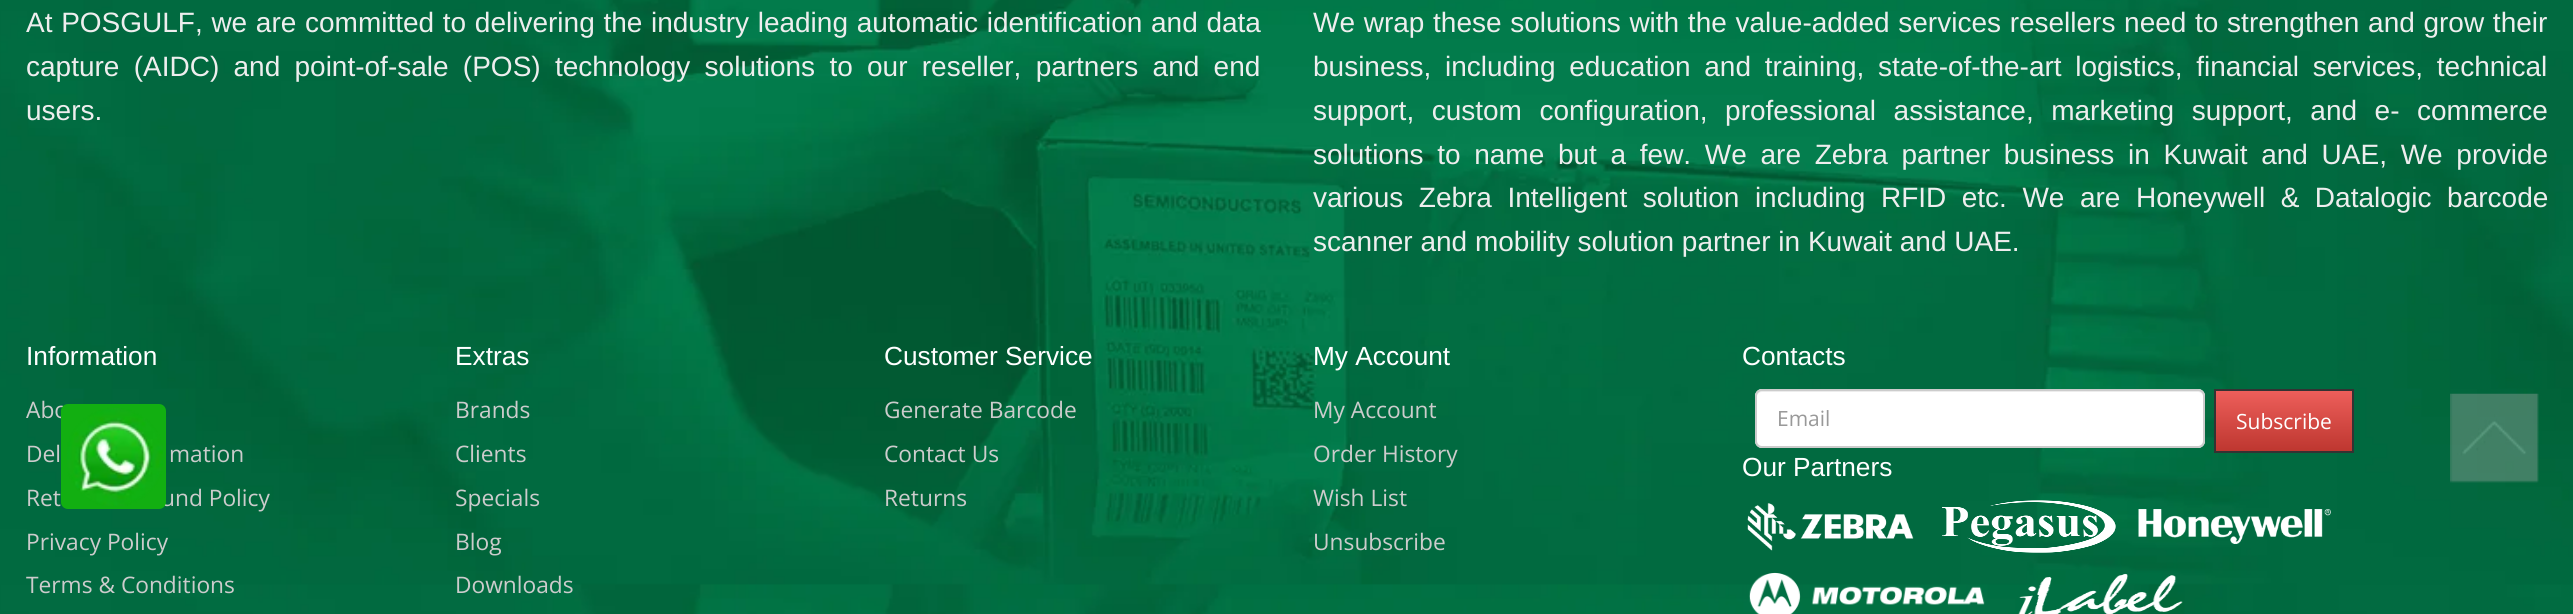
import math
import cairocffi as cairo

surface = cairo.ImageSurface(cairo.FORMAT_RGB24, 2573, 614)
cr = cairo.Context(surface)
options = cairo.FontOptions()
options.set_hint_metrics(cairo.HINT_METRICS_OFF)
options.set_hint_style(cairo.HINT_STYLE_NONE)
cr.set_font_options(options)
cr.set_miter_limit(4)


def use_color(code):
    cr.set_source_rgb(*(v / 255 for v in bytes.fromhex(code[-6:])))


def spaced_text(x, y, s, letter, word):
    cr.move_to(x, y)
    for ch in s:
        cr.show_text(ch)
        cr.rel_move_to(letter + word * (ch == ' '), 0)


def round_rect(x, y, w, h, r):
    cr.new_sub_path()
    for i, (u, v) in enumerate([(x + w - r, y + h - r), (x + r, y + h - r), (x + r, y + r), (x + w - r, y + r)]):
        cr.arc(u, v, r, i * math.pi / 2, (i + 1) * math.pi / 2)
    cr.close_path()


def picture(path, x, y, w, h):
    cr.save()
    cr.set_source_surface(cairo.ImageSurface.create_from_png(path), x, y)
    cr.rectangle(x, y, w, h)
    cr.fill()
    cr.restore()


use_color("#ffffff")
cr.paint()
picture("img1.png", 0, 0, 2573, 614)
cr.select_font_face("Liberation Sans")
cr.set_font_size(28)
use_color("#eeeeee")
spaced_text(26, 32, "At POSGULF, we are committed to delivering the industry leading automatic identification and data", 0, 0.9)
spaced_text(26, 76, "capture (AIDC) and point-of-sale (POS) technology solutions to our reseller, partners and end", 0, 6.5)
cr.move_to(26, 120)
cr.show_text("users.")
spaced_text(1313, 32, "We wrap these solutions with the value-added services resellers need to strengthen and grow their", 0, 0.9)
spaced_text(1313, 76, "business, including education and training, state-of-the-art logistics, financial services, technical", 0, 5.9)
spaced_text(1313, 120, "support, custom configuration, professional assistance, marketing support, and e- commerce", 0, 9.75)
spaced_text(1313, 164, "solutions to name but a few. We are Zebra partner business in Kuwait and UAE, We provide", 0, 5.9)
spaced_text(1313, 207, "various Zebra Intelligent solution including RFID etc. We are Honeywell & Datalogic barcode", 0, 7.75)
cr.move_to(1313, 251)
cr.show_text("scanner and mobility solution partner in Kuwait and UAE.")
cr.set_font_size(26.25)
use_color("#ffffff")
cr.move_to(26, 365)
cr.show_text("Information")
cr.select_font_face("Open Sans")
cr.set_font_size(22.75)
use_color("#cccccc")
cr.move_to(26, 418)
cr.show_text("Abo")
cr.move_to(26, 462)
cr.show_text("Del")
cr.move_to(169, 462)
cr.show_text("mation")
cr.move_to(26, 506)
cr.show_text("Ret")
cr.move_to(161, 506)
cr.show_text("und Policy")
cr.move_to(26, 550)
cr.show_text("Privacy Policy")
cr.move_to(26, 593)
cr.show_text("Terms & Conditions")
cr.select_font_face("Liberation Sans")
cr.set_font_size(26.25)
use_color("#ffffff")
cr.move_to(455, 365)
cr.show_text("Extras")
cr.select_font_face("Open Sans")
cr.set_font_size(22.75)
use_color("#cccccc")
cr.move_to(455, 418)
cr.show_text("Brands")
cr.move_to(455, 462)
cr.show_text("Clients")
cr.move_to(455, 506)
cr.show_text("Specials")
cr.move_to(455, 550)
cr.show_text("Blog")
cr.move_to(455, 593)
cr.show_text("Downloads")
cr.select_font_face("Liberation Sans")
cr.set_font_size(26.25)
use_color("#ffffff")
cr.move_to(884, 365)
cr.show_text("Customer Service")
cr.select_font_face("Open Sans")
cr.set_font_size(22.75)
use_color("#cccccc")
cr.move_to(884, 418)
cr.show_text("Generate Barcode")
cr.move_to(884, 462)
cr.show_text("Contact Us")
cr.move_to(884, 506)
cr.show_text("Returns")
cr.select_font_face("Liberation Sans")
cr.set_font_size(26.25)
use_color("#ffffff")
cr.move_to(1313, 365)
cr.show_text("My Account")
cr.select_font_face("Open Sans")
cr.set_font_size(22.75)
use_color("#cccccc")
cr.move_to(1313, 418)
cr.show_text("My Account")
cr.move_to(1313, 462)
cr.show_text("Order History")
cr.move_to(1313, 506)
cr.show_text("Wish List")
cr.move_to(1313, 550)
cr.show_text("Unsubscribe")
cr.select_font_face("Liberation Sans")
cr.set_font_size(26.25)
use_color("#ffffff")
cr.move_to(1742, 365)
cr.show_text("Contacts")
round_rect(1755, 389, 450, 59, 7)
cr.fill()
use_color("#ececec")
cr.new_path()
cr.move_to(1762, 392)
cr.line_to(2198, 392)
cr.curve_to(2201, 392, 2203, 394, 2203, 397)
cr.curve_to(2203, 394, 2202, 390, 2198, 390)
cr.line_to(1762, 390)
cr.curve_to(1758, 390, 1757, 394, 1757, 397)
cr.curve_to(1757, 394, 1759, 392, 1762, 392)
cr.close_path()
cr.fill()
round_rect(1756, 390, 448, 57, 6)
use_color("#cccccc")
cr.stroke()
cr.select_font_face("Open Sans")
cr.set_font_size(21)
use_color("#999999")
cr.move_to(1777, 426)
cr.show_text("Email")
gradient = cairo.LinearGradient(2284, 390, 2284, 452)
gradient.add_color_stop_rgba(0, 0.933, 0.373, 0.357, 1)
gradient.add_color_stop_rgba(1, 0.741, 0.212, 0.184, 1)
cr.set_source(gradient)
cr.rectangle(2216, 391, 136, 60)
cr.fill()
cr.rectangle(2215, 390, 138, 62)
use_color("#333333")
cr.stroke()
use_color("#ffffff")
cr.move_to(2236, 429)
cr.show_text("Subscribe")
cr.select_font_face("Liberation Sans")
cr.set_font_size(26.25)
cr.move_to(1742, 476)
cr.show_text("Our Partners")
picture("img2.png", 1747, 503, 167, 48)
picture("img3.png", 1942, 500, 174, 53)
picture("img4.png", 2138, 509, 193, 35)
picture("img5.png", 1749, 572, 236, 42)
picture("img6.png", 2018, 573, 165, 41)
use_color("#12af11")
round_rect(61, 404, 105, 105, 7)
cr.fill()
picture("img7.png", 67, 408, 96, 98)
picture("img8.png", 2450, 393, 89, 90)
surface.write_to_png("result.png")
